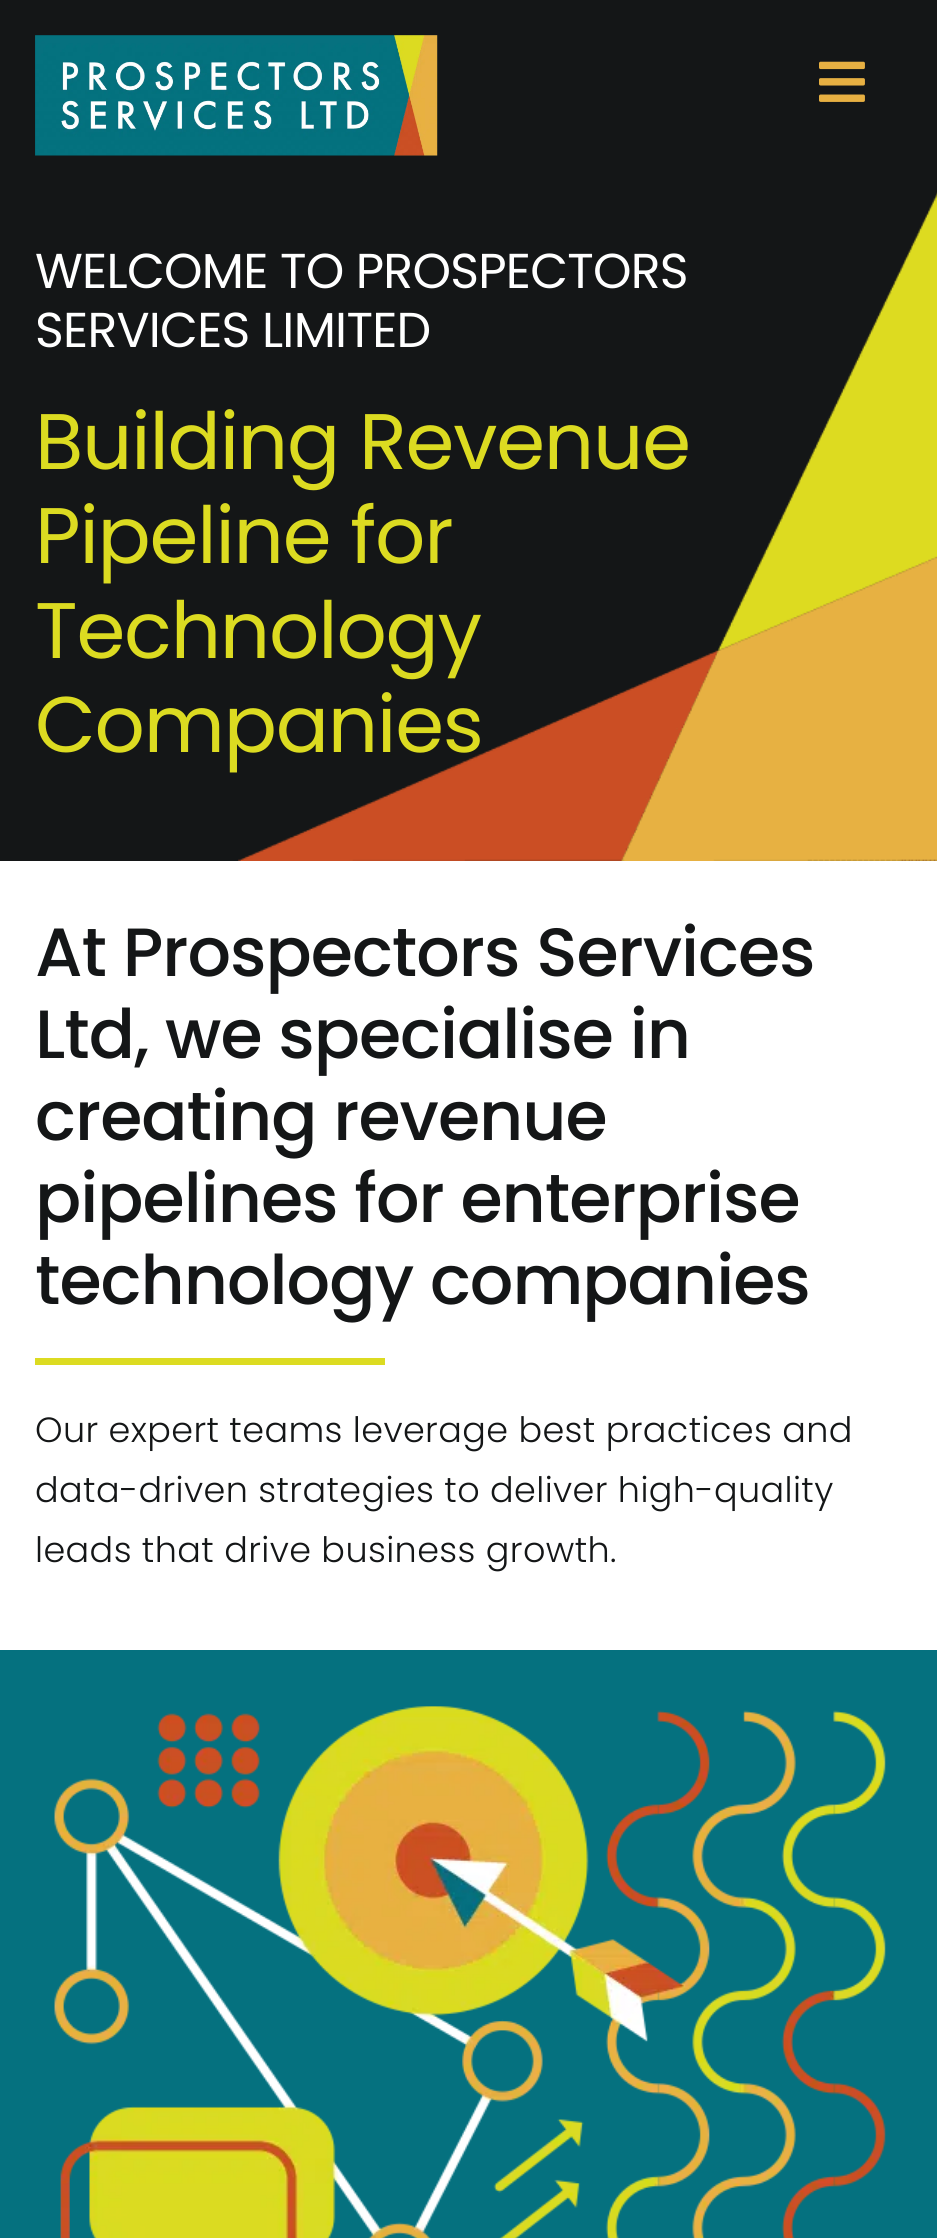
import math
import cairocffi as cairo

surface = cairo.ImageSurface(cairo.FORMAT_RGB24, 937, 2238)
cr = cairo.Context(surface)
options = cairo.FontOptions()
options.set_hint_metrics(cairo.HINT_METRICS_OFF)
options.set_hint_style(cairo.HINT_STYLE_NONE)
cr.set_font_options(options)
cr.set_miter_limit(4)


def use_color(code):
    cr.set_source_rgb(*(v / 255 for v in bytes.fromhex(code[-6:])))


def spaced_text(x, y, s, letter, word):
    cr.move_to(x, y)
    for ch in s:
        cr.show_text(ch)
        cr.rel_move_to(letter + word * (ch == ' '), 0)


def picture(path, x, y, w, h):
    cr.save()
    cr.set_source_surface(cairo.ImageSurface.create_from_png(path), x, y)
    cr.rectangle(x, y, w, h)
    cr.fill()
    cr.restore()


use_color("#ffffff")
cr.paint()
use_color("#141617")
cr.rectangle(0, 0, 937, 861)
cr.fill()
picture("img1.png", 35, 35, 403, 121)
picture("img2.png", 819, 61, 46, 41)
picture("img3.png", 238, 192, 699, 669)
cr.select_font_face("Poppins")
cr.set_font_size(49)
use_color("#ffffff")
spaced_text(35, 288, "WELCOME TO PROSPECTORS", -0.75, 0)
spaced_text(35, 347, "SERVICES LIMITED", -0.75, 0)
cr.set_font_size(78.75)
use_color("#dcdb21")
spaced_text(35, 469, "Building Revenue", -1.2, 0)
spaced_text(35, 563, "Pipeline for", -1.2, 0)
spaced_text(35, 658, "Technology", -1.2, 0)
spaced_text(35, 752, "Companies", -1.2, 0)
cr.select_font_face("Poppins Medium")
cr.set_font_size(68.25)
use_color("#141617")
spaced_text(35, 976, "At Prospectors Services", -1, 0)
spaced_text(35, 1058, "Ltd, we specialise in", -1, 0)
spaced_text(35, 1140, "creating revenue", -1, 0)
spaced_text(35, 1222, "pipelines for enterprise", -1, 0)
spaced_text(35, 1304, "technology companies", -1, 0)
use_color("#dcdb21")
cr.rectangle(35, 1358, 350, 7)
cr.fill()
cr.select_font_face("Poppins Light")
cr.set_font_size(35)
use_color("#141617")
spaced_text(35, 1442, "Our expert teams leverage best practices and", 0.4, 0)
spaced_text(35, 1502, "data-driven strategies to deliver high-quality", 0.4, 0)
spaced_text(35, 1562, "leads that drive business growth.", 0.4, 0)
use_color("#05717f")
cr.rectangle(0, 1650, 937, 588)
cr.fill()
picture("img4.png", 54, 1706, 832, 532)
surface.write_to_png("result.png")
